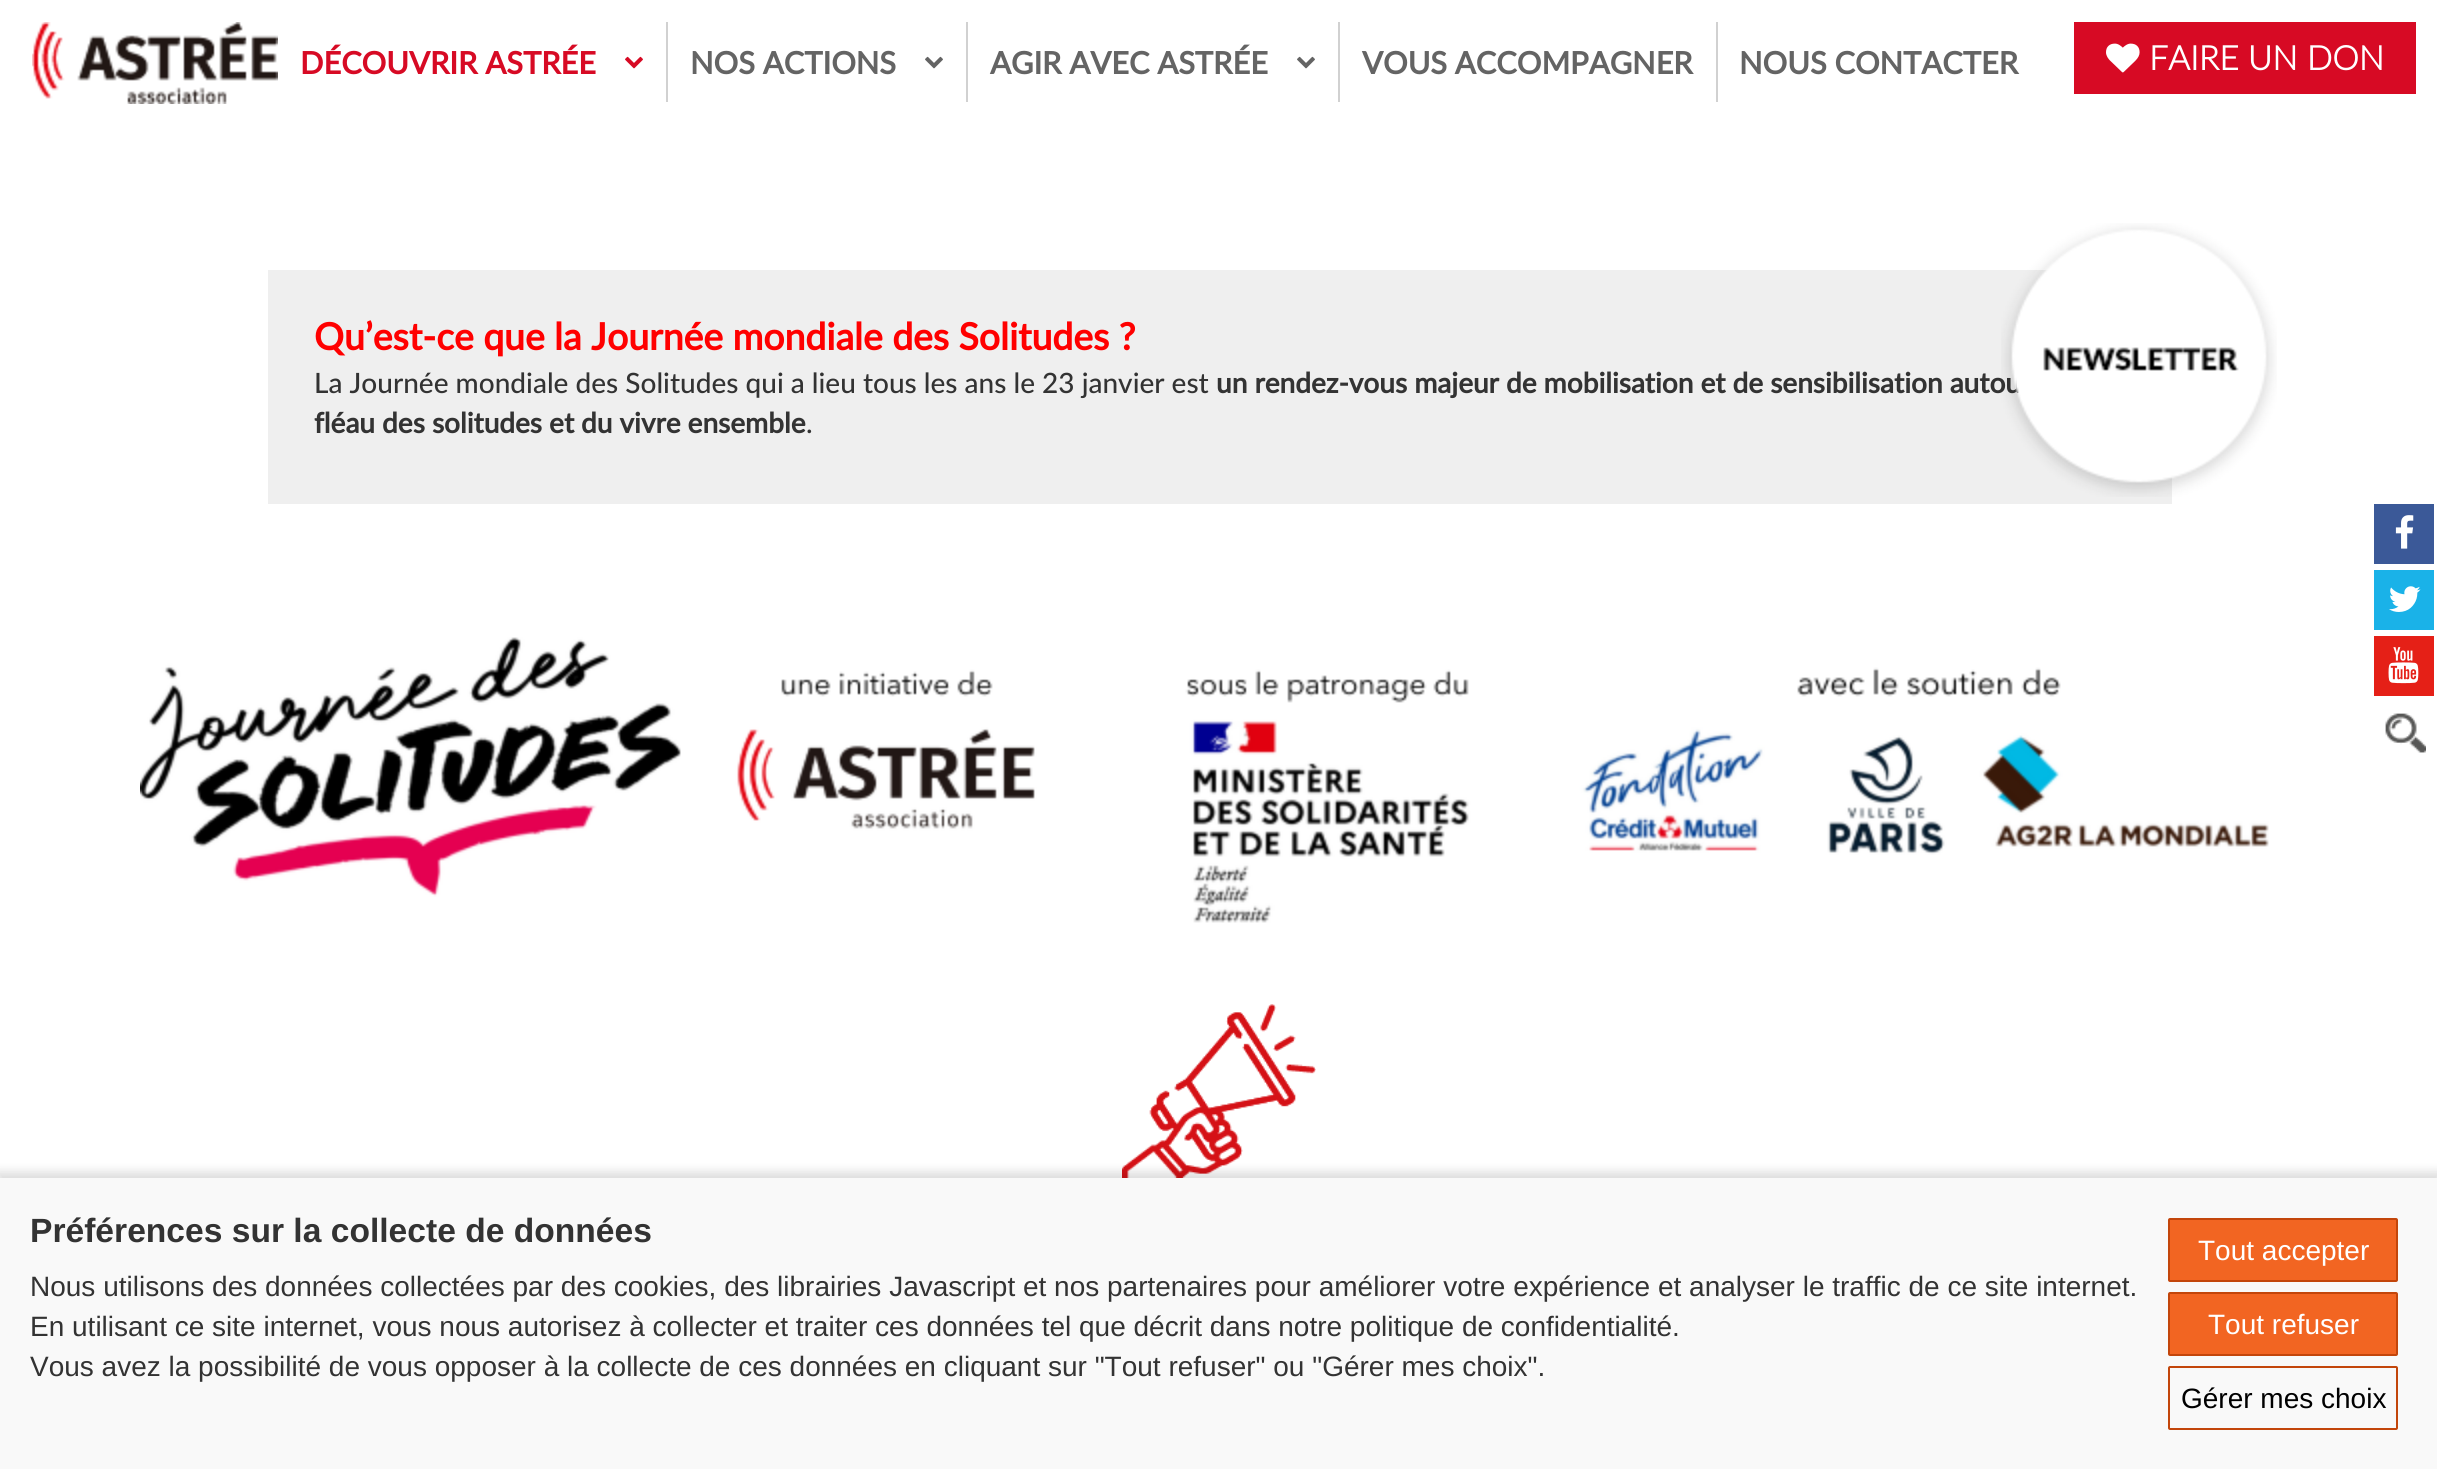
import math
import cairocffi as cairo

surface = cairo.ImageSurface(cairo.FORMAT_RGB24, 2437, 1469)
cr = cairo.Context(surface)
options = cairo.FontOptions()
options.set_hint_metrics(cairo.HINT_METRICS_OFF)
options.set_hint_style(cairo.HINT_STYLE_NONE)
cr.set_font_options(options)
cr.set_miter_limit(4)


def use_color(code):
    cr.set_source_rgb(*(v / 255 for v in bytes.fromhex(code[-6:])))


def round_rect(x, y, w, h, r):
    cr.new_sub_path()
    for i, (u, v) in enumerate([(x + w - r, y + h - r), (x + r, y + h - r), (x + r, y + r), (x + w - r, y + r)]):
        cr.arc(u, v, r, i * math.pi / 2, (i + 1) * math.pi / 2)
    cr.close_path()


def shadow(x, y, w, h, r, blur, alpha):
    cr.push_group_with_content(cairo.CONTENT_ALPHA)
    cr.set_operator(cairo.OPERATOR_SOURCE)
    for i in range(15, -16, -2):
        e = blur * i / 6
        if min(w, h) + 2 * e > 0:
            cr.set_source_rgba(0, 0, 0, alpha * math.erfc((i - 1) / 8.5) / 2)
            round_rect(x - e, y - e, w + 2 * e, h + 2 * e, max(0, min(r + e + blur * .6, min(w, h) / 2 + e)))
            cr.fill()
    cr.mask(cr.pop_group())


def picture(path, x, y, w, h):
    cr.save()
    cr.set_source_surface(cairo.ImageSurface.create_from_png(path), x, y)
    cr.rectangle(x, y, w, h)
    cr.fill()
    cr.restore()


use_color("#ffffff")
cr.paint()
picture("img1.png", 32, 22, 246, 82)
use_color("#d1d1d1")
cr.rectangle(666, 22, 2, 80)
cr.fill()
cr.select_font_face("Lato", cairo.FONT_SLANT_NORMAL, cairo.FONT_WEIGHT_BOLD)
cr.set_font_size(30.75)
use_color("#d70a24")
cr.move_to(300, 74)
cr.show_text("DÉCOUVRIR ASTRÉE")
picture("img2.png", 625, 56, 18, 13)
use_color("#d1d1d1")
cr.rectangle(966, 22, 2, 80)
cr.fill()
use_color("#646464")
cr.move_to(690, 74)
cr.show_text("NOS ACTIONS")
picture("img3.png", 925, 56, 18, 13)
use_color("#d1d1d1")
cr.rectangle(1338, 22, 2, 80)
cr.fill()
use_color("#646464")
cr.move_to(990, 74)
cr.show_text("AGIR AVEC ASTRÉE")
picture("img3.png", 1297, 56, 18, 13)
use_color("#d1d1d1")
cr.rectangle(1716, 22, 2, 80)
cr.fill()
use_color("#646464")
cr.move_to(1362, 74)
cr.show_text("VOUS ACCOMPAGNER")
cr.move_to(1739, 74)
cr.show_text("NOUS CONTACTER")
use_color("#d70a24")
cr.rectangle(2074, 22, 342, 72)
cr.fill()
picture("img4.png", 2106, 43, 34, 30)
cr.select_font_face("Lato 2", cairo.FONT_SLANT_NORMAL, cairo.FONT_WEIGHT_BOLD)
cr.set_font_size(33.6)
use_color("#ffffff")
cr.move_to(2149, 70)
cr.show_text("FAIRE UN DON")
use_color("#efefef")
cr.rectangle(268, 270, 1904, 234)
cr.fill()
cr.select_font_face("Lato", cairo.FONT_SLANT_NORMAL, cairo.FONT_WEIGHT_BOLD)
cr.set_font_size(37.3)
use_color("#ff0000")
cr.move_to(314, 350)
cr.show_text("Qu’est-ce que la Journée mondiale des Solitudes ?")
cr.select_font_face("Lato Medium")
cr.set_font_size(28)
use_color("#333333")
cr.move_to(314, 393)
cr.show_text("La Journée mondiale des Solitudes qui a lieu tous les ans le 23 janvier est")
cr.select_font_face("Lato", cairo.FONT_SLANT_NORMAL, cairo.FONT_WEIGHT_BOLD)
cr.move_to(1216, 393)
cr.show_text("un rendez-vous majeur de mobilisation et de sensibilisation autou")
cr.move_to(314, 433)
cr.show_text("fléau des solitudes et du vivre ensemble")
cr.select_font_face("Lato Medium")
cr.move_to(806, 433)
cr.show_text(".")
picture("img5.png", 2001, 223, 276, 274)
picture("img6.png", 140, 637, 2129, 286)
picture("img7.png", 1122, 1004, 194, 174)
use_color("#3b5998")
cr.rectangle(2374, 504, 60, 60)
cr.fill()
picture("img8.png", 2395, 515, 19, 34)
use_color("#1ab2e8")
cr.rectangle(2374, 570, 60, 60)
cr.fill()
picture("img9.png", 2389, 586, 32, 26)
use_color("#e52017")
cr.rectangle(2374, 636, 60, 60)
cr.fill()
picture("img10.png", 2388, 647, 31, 37)
picture("img11.png", 2385, 713, 41, 40)
use_color("#000000")
shadow(-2, 1172, 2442, 296, 0, 5, 0.14)
use_color("#f9f9f9")
cr.rectangle(0, 1178, 2437, 291)
cr.fill()
cr.select_font_face("Liberation Sans", cairo.FONT_SLANT_NORMAL, cairo.FONT_WEIGHT_BOLD)
cr.set_font_size(33.6)
use_color("#333333")
cr.move_to(30, 1242)
cr.show_text("Préférences sur la collecte de données")
cr.select_font_face("Liberation Sans")
cr.set_font_size(28)
cr.move_to(30, 1296)
cr.show_text("Nous utilisons des données collectées par des cookies, des librairies Javascript et nos partenaires pour améliorer votre expérience et analyser le traffic de ce site internet.")
cr.move_to(30, 1336)
cr.show_text("En utilisant ce site internet, vous nous autorisez à collecter et traiter ces données tel que décrit dans notre politique de confidentialité.")
cr.move_to(30, 1376)
cr.show_text("Vous avez la possibilité de vous opposer à la collecte de ces données en cliquant sur \"Tout refuser\" ou \"Gérer mes choix\".")
use_color("#f26522")
round_rect(2169, 1219, 228, 62, 1)
cr.fill_preserve()
use_color("#c3460b")
cr.stroke()
use_color("#ffffff")
cr.move_to(2198, 1260)
cr.show_text("Tout accepter")
use_color("#f26522")
round_rect(2169, 1293, 228, 62, 1)
cr.fill_preserve()
use_color("#c3460b")
cr.stroke()
use_color("#ffffff")
cr.move_to(2208, 1334)
cr.show_text("Tout refuser")
round_rect(2169, 1367, 228, 62, 1)
use_color("#c3460b")
cr.stroke()
use_color("#000000")
cr.move_to(2181, 1408)
cr.show_text("Gérer mes choix")
surface.write_to_png("result.png")
